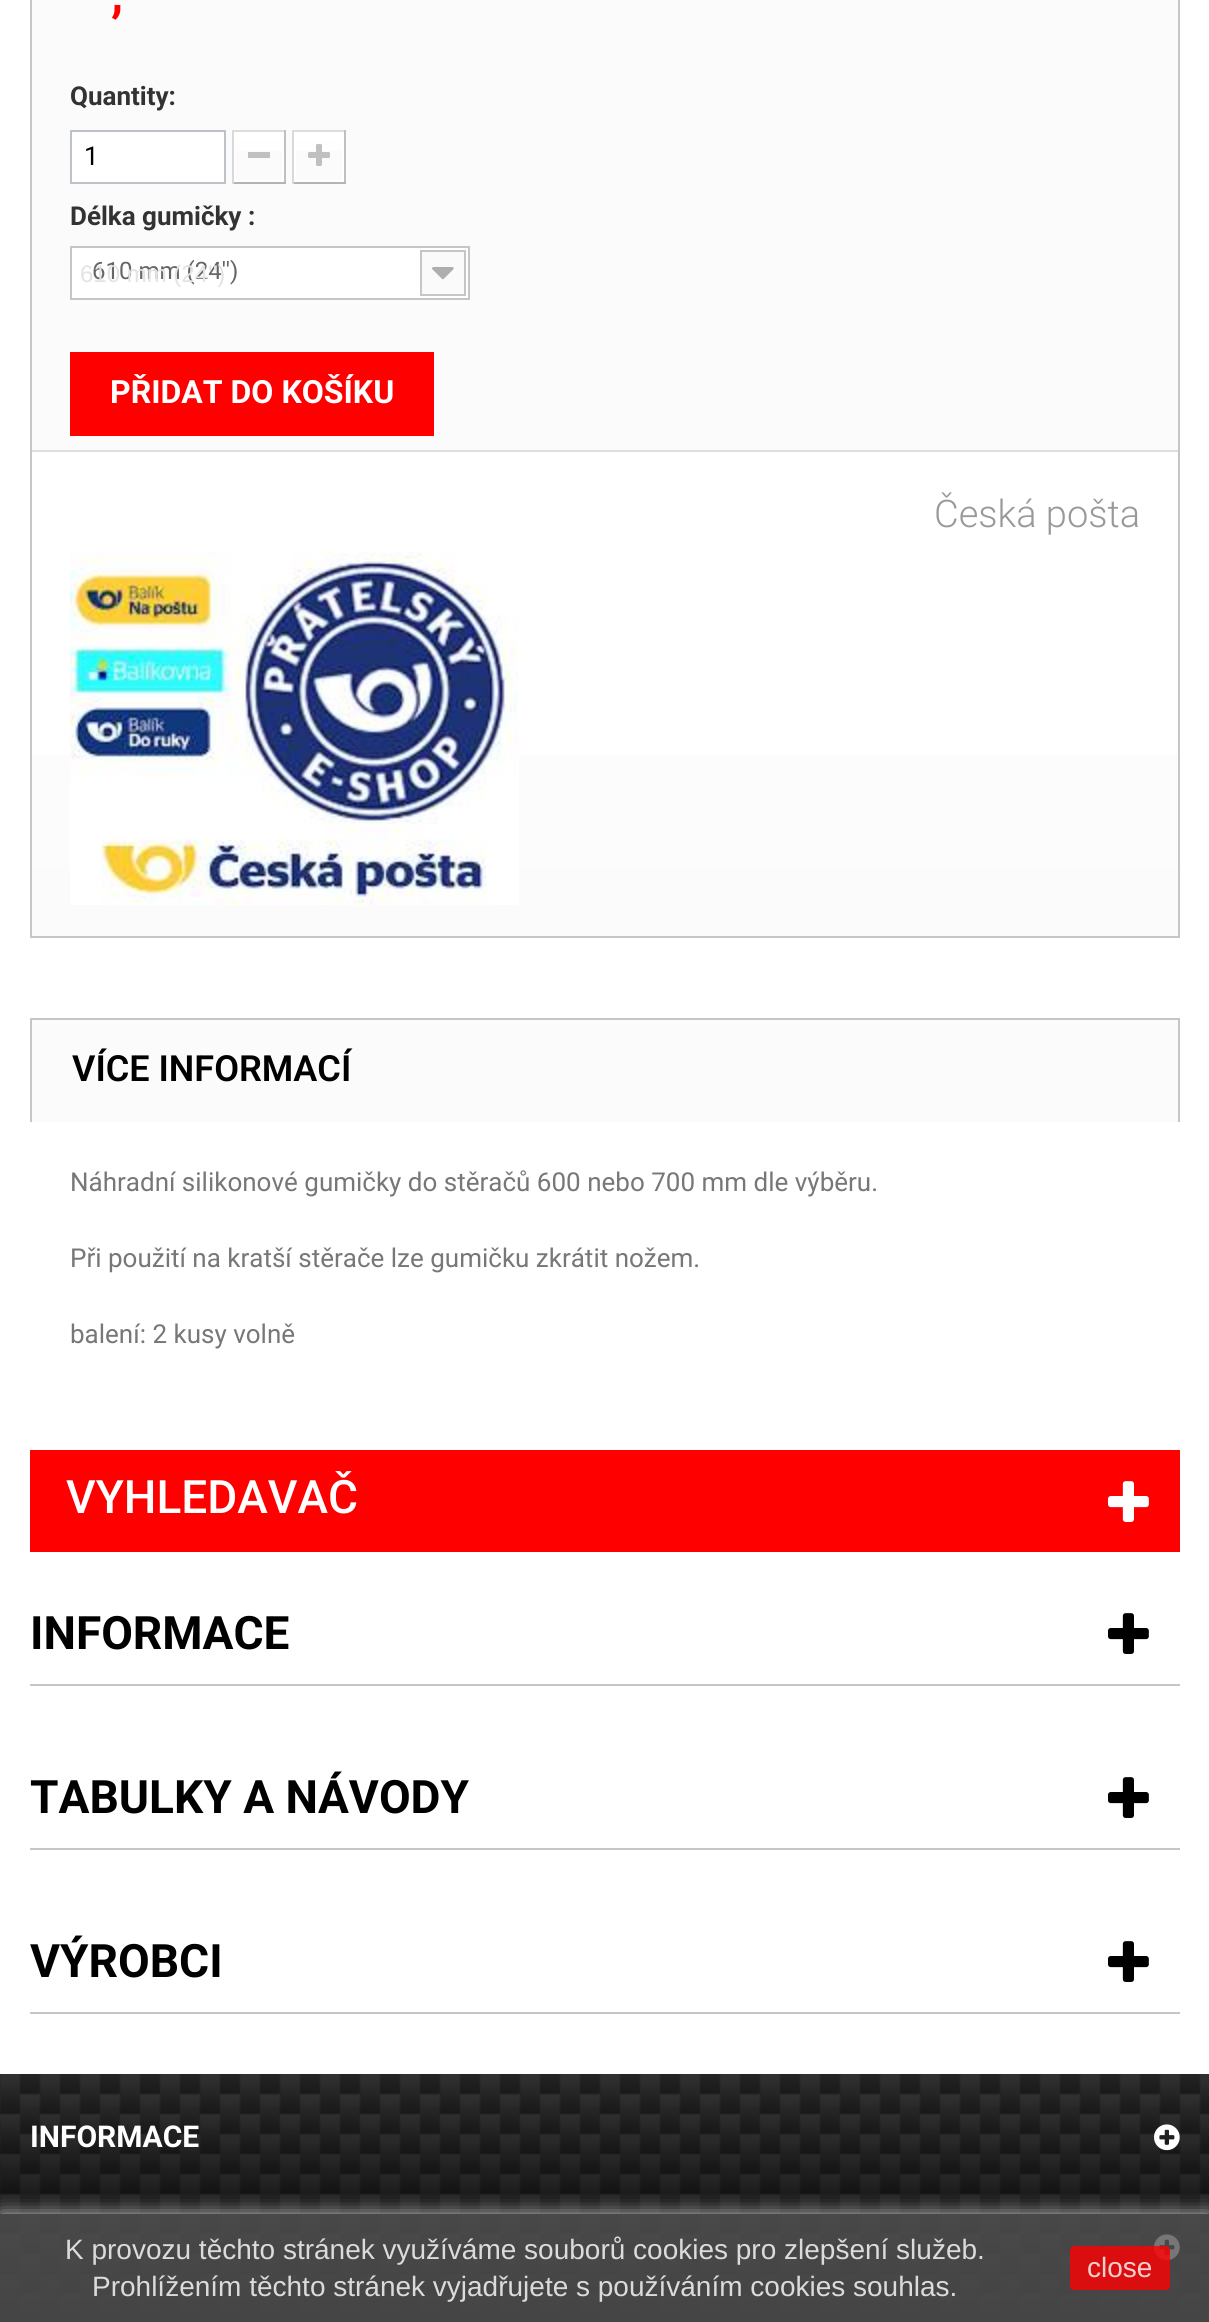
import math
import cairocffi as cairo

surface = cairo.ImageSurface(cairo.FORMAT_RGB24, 1209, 2322)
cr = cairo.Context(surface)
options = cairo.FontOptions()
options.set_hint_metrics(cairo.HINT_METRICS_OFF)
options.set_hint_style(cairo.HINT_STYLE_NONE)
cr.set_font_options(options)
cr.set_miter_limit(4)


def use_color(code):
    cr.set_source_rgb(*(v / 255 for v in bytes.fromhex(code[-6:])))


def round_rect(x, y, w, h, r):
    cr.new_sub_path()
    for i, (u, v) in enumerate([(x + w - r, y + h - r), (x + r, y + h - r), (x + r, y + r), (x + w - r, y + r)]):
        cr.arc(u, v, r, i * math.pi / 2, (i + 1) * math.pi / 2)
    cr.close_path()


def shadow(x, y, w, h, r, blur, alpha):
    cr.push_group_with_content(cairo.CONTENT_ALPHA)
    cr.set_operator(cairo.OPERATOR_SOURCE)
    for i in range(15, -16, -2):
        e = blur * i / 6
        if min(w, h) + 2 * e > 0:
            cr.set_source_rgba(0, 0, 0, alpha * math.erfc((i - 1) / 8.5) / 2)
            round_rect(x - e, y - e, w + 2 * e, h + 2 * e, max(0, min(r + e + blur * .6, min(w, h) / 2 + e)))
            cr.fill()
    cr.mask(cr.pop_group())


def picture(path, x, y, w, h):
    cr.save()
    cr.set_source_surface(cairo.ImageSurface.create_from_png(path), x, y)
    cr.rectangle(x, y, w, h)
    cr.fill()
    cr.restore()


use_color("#ffffff")
cr.paint()
use_color("#fbfbfb")
cr.rectangle(32, 0, 1146, 450)
cr.fill()
cr.rectangle(31, -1, 1148, 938)
use_color("#c6c6c6")
cr.stroke()
cr.select_font_face("Roboto SemiBold")
cr.set_font_size(52)
use_color("#ff0000")
cr.move_to(111, 11)
cr.show_text(",")
cr.select_font_face("Roboto", cairo.FONT_SLANT_NORMAL, cairo.FONT_WEIGHT_BOLD)
cr.set_font_size(26)
use_color("#333333")
cr.move_to(70, 105)
cr.show_text("Quantity:")
use_color("#ffffff")
cr.rectangle(71, 131, 154, 52)
cr.fill_preserve()
use_color("#bdc2c9")
cr.stroke()
cr.select_font_face("Roboto")
use_color("#000000")
cr.move_to(84, 165)
cr.show_text("1")
use_color("#dedcdc")
cr.rectangle(232, 130, 54, 2)
cr.fill()
use_color("#c1bfbf")
cr.rectangle(284, 130, 2, 54)
cr.fill()
use_color("#b5b4b4")
cr.rectangle(232, 182, 54, 2)
cr.fill()
use_color("#dad8d8")
cr.rectangle(232, 130, 2, 54)
cr.fill()
gradient = cairo.LinearGradient(259, 134, 259, 180)
gradient.add_color_stop_rgba(0, 1, 1, 1, 1)
gradient.add_color_stop_rgba(1, 0.984, 0.984, 0.984, 1)
cr.set_source(gradient)
cr.rectangle(236, 134, 46, 17)
cr.fill()
cr.rectangle(235, 133, 48, 48)
use_color("#ffffff")
cr.stroke()
use_color("#c0c0c0")
cr.rectangle(248, 152, 22, 6)
cr.fill()
use_color("#dedcdc")
cr.rectangle(292, 130, 54, 2)
cr.fill()
use_color("#c1bfbf")
cr.rectangle(344, 130, 2, 54)
cr.fill()
use_color("#b5b4b4")
cr.rectangle(292, 182, 54, 2)
cr.fill()
use_color("#dad8d8")
cr.rectangle(292, 130, 2, 54)
cr.fill()
gradient = cairo.LinearGradient(319, 134, 319, 180)
gradient.add_color_stop_rgba(0, 1, 1, 1, 1)
gradient.add_color_stop_rgba(1, 0.984, 0.984, 0.984, 1)
cr.set_source(gradient)
cr.rectangle(296, 134, 46, 17)
cr.fill()
cr.rectangle(295, 133, 48, 48)
use_color("#ffffff")
cr.stroke()
picture("img1.png", 308, 144, 22, 22)
cr.select_font_face("Roboto", cairo.FONT_SLANT_NORMAL, cairo.FONT_WEIGHT_BOLD)
use_color("#333333")
cr.move_to(70, 225)
cr.show_text("Délka gumičky :")
use_color("#ffffff")
cr.rectangle(71, 247, 398, 52)
cr.fill_preserve()
use_color("#c6c6c6")
cr.stroke()
cr.select_font_face("Roboto")
cr.set_font_size(24)
use_color("#666666")
cr.move_to(92, 279)
cr.show_text("610 mm (24'')")
use_color("#fafafa")
cr.rectangle(421, 251, 44, 44)
cr.fill_preserve()
use_color("#c6c6c6")
cr.stroke()
picture("img2.png", 432, 267, 22, 13)
cr.select_font_face("Liberation Sans")
use_color("#e3e3e3")
cr.move_to(80, 282)
cr.show_text("610 mm (24'')")
use_color("#ff0000")
cr.rectangle(70, 352, 364, 84)
cr.fill()
cr.select_font_face("Roboto", cairo.FONT_SLANT_NORMAL, cairo.FONT_WEIGHT_BOLD)
cr.set_font_size(32)
use_color("#ffffff")
cr.move_to(110, 403)
cr.show_text("PŘIDAT DO KOŠÍKU")
gradient = cairo.LinearGradient(605, 452, 605, 936)
gradient.add_color_stop_rgba(0, 1, 1, 1, 1)
gradient.add_color_stop_rgba(1, 0.984, 0.984, 0.984, 1)
cr.set_source(gradient)
cr.rectangle(32, 755, 1146, 181)
cr.fill()
use_color("#dfdede")
cr.rectangle(32, 450, 1146, 2)
cr.fill()
cr.select_font_face("Roboto Light")
cr.set_font_size(38)
use_color("#999999")
cr.move_to(934, 527)
cr.show_text("Česká pošta")
picture("img3.png", 70, 552, 449, 353)
use_color("#fbfbfb")
cr.rectangle(32, 1020, 1146, 102)
cr.fill()
use_color("#c6c6c6")
cr.rectangle(30, 1018, 1150, 2)
cr.fill()
cr.rectangle(1178, 1018, 2, 104)
cr.fill()
cr.rectangle(30, 1018, 2, 104)
cr.fill()
cr.select_font_face("Roboto SemiBold")
cr.set_font_size(36)
use_color("#000000")
cr.move_to(72, 1081)
cr.show_text("VÍCE INFORMACÍ")
cr.select_font_face("Roboto")
cr.set_font_size(26)
use_color("#777777")
cr.move_to(70, 1191)
cr.show_text("Náhradní silikonové gumičky do stěračů 600 nebo 700 mm dle výběru.")
cr.move_to(70, 1267)
cr.show_text("Při použití na kratší stěrače lze gumičku zkrátit nožem.")
cr.move_to(70, 1343)
cr.show_text("balení: 2 kusy volně")
use_color("#ff0000")
cr.rectangle(30, 1450, 1150, 102)
cr.fill()
cr.select_font_face("Roboto Medium")
cr.set_font_size(46)
use_color("#ffffff")
cr.move_to(66, 1513)
cr.show_text("VYHLEDAVAČ")
picture("img4.png", 1108, 1481, 41, 41)
use_color("#c6c6c6")
cr.rectangle(30, 1684, 1150, 2)
cr.fill()
cr.select_font_face("Roboto", cairo.FONT_SLANT_NORMAL, cairo.FONT_WEIGHT_BOLD)
use_color("#000000")
cr.move_to(30, 1649)
cr.show_text("INFORMACE")
picture("img5.png", 1108, 1613, 41, 41)
use_color("#c6c6c6")
cr.rectangle(30, 1848, 1150, 2)
cr.fill()
use_color("#000000")
cr.move_to(30, 1813)
cr.show_text("TABULKY A NÁVODY")
picture("img5.png", 1108, 1777, 41, 41)
use_color("#c6c6c6")
cr.rectangle(30, 2012, 1150, 2)
cr.fill()
use_color("#000000")
cr.move_to(30, 1977)
cr.show_text("VÝROBCI")
picture("img5.png", 1108, 1941, 41, 41)
picture("img6.png", 0, 2074, 1209, 248)
cr.set_font_size(30)
use_color("#ffffff")
cr.move_to(30, 2147)
cr.show_text("INFORMACE")
picture("img7.png", 1154, 2124, 26, 27)
picture("img8.png", 1154, 2234, 26, 27)
cr.save()
cr.rectangle(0, 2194, 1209, 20)
cr.clip()
use_color("#ffffff")
shadow(0, 2214, 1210, 108, 0, 10, 0.8)
cr.restore()
cr.set_source_rgba(0.329, 0.329, 0.329, 0.8)
cr.rectangle(0, 2214, 1209, 108)
cr.fill()
cr.select_font_face("Liberation Sans")
cr.set_font_size(28)
use_color("#dbdbdb")
cr.move_to(65, 2259)
cr.show_text("K provozu těchto stránek využíváme souborů cookies pro zlepšení služeb.")
cr.move_to(92, 2296)
cr.show_text("Prohlížením těchto stránek vyjadřujete s používáním cookies souhlas.")
cr.set_source_rgba(1, 0, 0, 0.8)
round_rect(1070, 2246, 100, 44, 4)
cr.fill()
use_color("#f8cfcf")
cr.move_to(1087, 2277)
cr.show_text("close")
surface.write_to_png("result.png")
